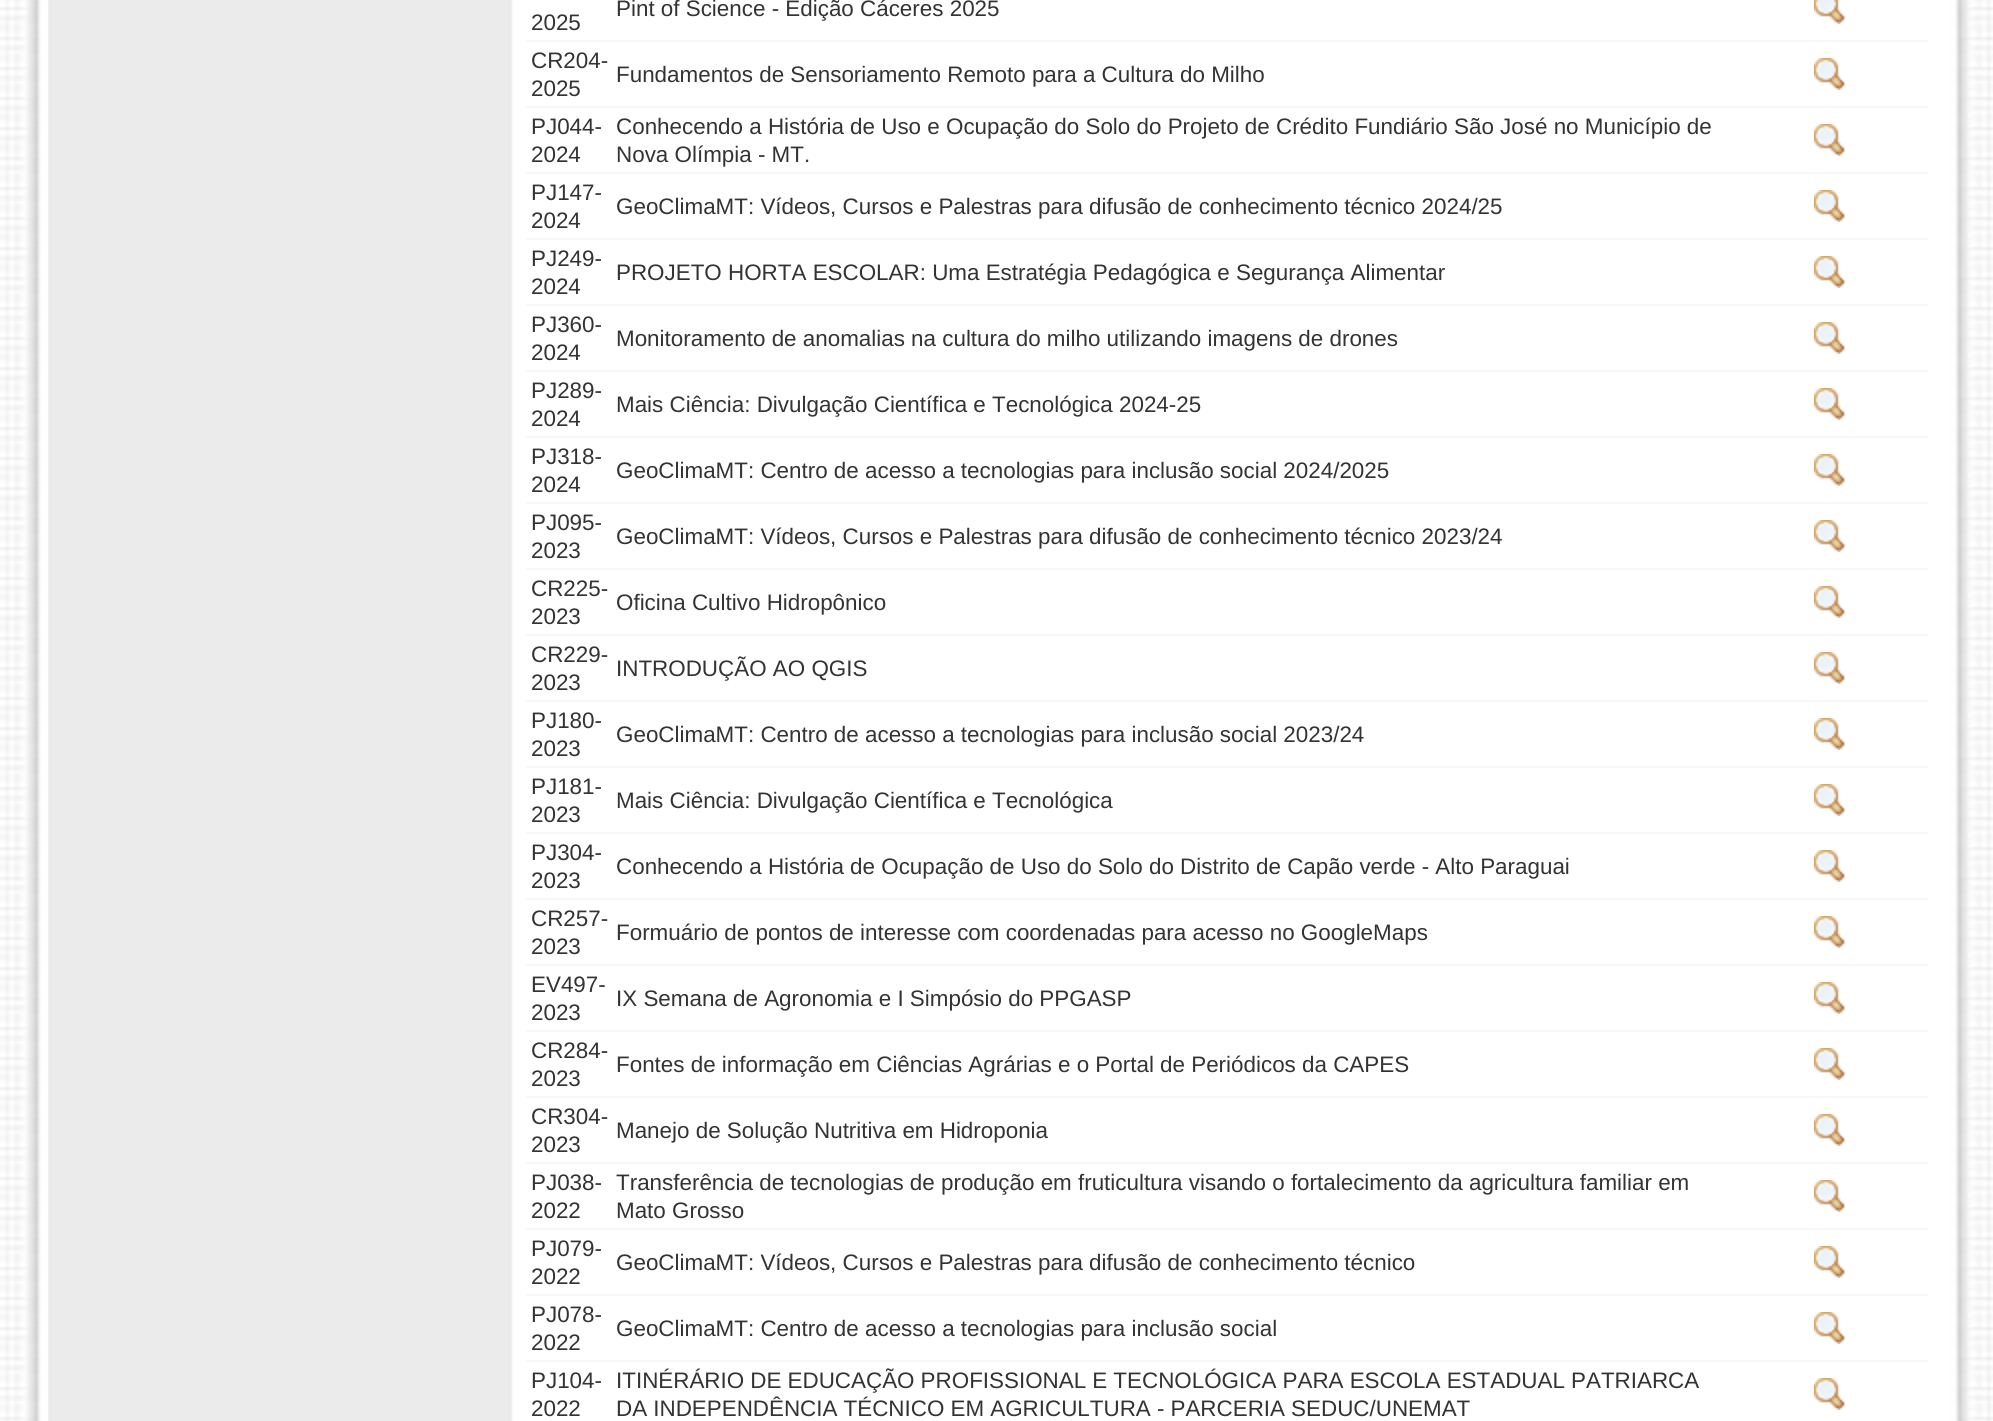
import math
import cairocffi as cairo

surface = cairo.ImageSurface(cairo.FORMAT_RGB24, 1993, 1421)
cr = cairo.Context(surface)
options = cairo.FontOptions()
options.set_hint_metrics(cairo.HINT_METRICS_OFF)
options.set_hint_style(cairo.HINT_STYLE_NONE)
cr.set_font_options(options)
cr.set_miter_limit(4)


def use_color(code):
    cr.set_source_rgb(*(v / 255 for v in bytes.fromhex(code[-6:])))


def spaced_text(x, y, s, letter, word):
    cr.move_to(x, y)
    for ch in s:
        cr.show_text(ch)
        cr.rel_move_to(letter + word * (ch == ' '), 0)


def picture(path, x, y, w, h):
    cr.save()
    cr.set_source_surface(cairo.ImageSurface.create_from_png(path), x, y)
    cr.rectangle(x, y, w, h)
    cr.fill()
    cr.restore()


use_color("#ffffff")
cr.paint()
picture("img1.png", 0, 0, 1993, 1421)
picture("img2.png", 48, 0, 480, 1421)
use_color("#f5f7f9")
cr.rectangle(526, 40, 1402, 2)
cr.fill()
picture("img3.png", 1814, 0, 32, 24)
cr.select_font_face("Liberation Sans")
cr.set_font_size(22.4)
use_color("#333333")
cr.move_to(531, 30)
cr.show_text("2025")
cr.move_to(616, 16)
cr.show_text("Pint of Science - Edição Cáceres 2025")
cr.move_to(531, 68)
cr.show_text("CR204-")
cr.move_to(531, 96)
cr.show_text("2025")
use_color("#f5f7f9")
cr.rectangle(526, 106, 1402, 2)
cr.fill()
picture("img4.png", 1814, 58, 32, 32)
use_color("#333333")
cr.move_to(616, 82)
cr.show_text("Fundamentos de Sensoriamento Remoto para a Cultura do Milho")
cr.move_to(531, 134)
cr.show_text("PJ044-")
cr.move_to(531, 162)
cr.show_text("2024")
cr.move_to(616, 134)
cr.show_text("Conhecendo a História de Uso e Ocupação do Solo do Projeto de Crédito Fundiário São José no Município de")
cr.move_to(616, 162)
cr.show_text("Nova Olímpia - MT.")
use_color("#f5f7f9")
cr.rectangle(526, 172, 1402, 2)
cr.fill()
picture("img4.png", 1814, 124, 32, 32)
use_color("#333333")
cr.move_to(531, 200)
cr.show_text("PJ147-")
cr.move_to(531, 228)
cr.show_text("2024")
use_color("#f5f7f9")
cr.rectangle(526, 238, 1402, 2)
cr.fill()
picture("img4.png", 1814, 190, 32, 32)
use_color("#333333")
cr.move_to(616, 214)
cr.show_text("GeoClimaMT: Vídeos, Cursos e Palestras para difusão de conhecimento técnico 2024/25")
cr.move_to(531, 266)
cr.show_text("PJ249-")
cr.move_to(531, 294)
cr.show_text("2024")
use_color("#f5f7f9")
cr.rectangle(526, 304, 1402, 2)
cr.fill()
picture("img4.png", 1814, 256, 32, 32)
use_color("#333333")
cr.move_to(616, 280)
cr.show_text("PROJETO HORTA ESCOLAR: Uma Estratégia Pedagógica e Segurança Alimentar")
cr.move_to(531, 332)
cr.show_text("PJ360-")
cr.move_to(531, 360)
cr.show_text("2024")
use_color("#f5f7f9")
cr.rectangle(526, 370, 1402, 2)
cr.fill()
picture("img4.png", 1814, 322, 32, 32)
use_color("#333333")
cr.move_to(616, 346)
cr.show_text("Monitoramento de anomalias na cultura do milho utilizando imagens de drones")
cr.move_to(531, 398)
cr.show_text("PJ289-")
cr.move_to(531, 426)
cr.show_text("2024")
use_color("#f5f7f9")
cr.rectangle(526, 436, 1402, 2)
cr.fill()
picture("img4.png", 1814, 388, 32, 32)
use_color("#333333")
cr.move_to(616, 412)
cr.show_text("Mais Ciência: Divulgação Científica e Tecnológica 2024-25")
cr.move_to(531, 464)
cr.show_text("PJ318-")
cr.move_to(531, 492)
cr.show_text("2024")
use_color("#f5f7f9")
cr.rectangle(526, 502, 1402, 2)
cr.fill()
picture("img4.png", 1814, 454, 32, 32)
use_color("#333333")
cr.move_to(616, 478)
cr.show_text("GeoClimaMT: Centro de acesso a tecnologias para inclusão social 2024/2025")
cr.move_to(531, 530)
cr.show_text("PJ095-")
cr.move_to(531, 558)
cr.show_text("2023")
use_color("#f5f7f9")
cr.rectangle(526, 568, 1402, 2)
cr.fill()
picture("img4.png", 1814, 520, 32, 32)
use_color("#333333")
cr.move_to(616, 544)
cr.show_text("GeoClimaMT: Vídeos, Cursos e Palestras para difusão de conhecimento técnico 2023/24")
cr.move_to(531, 596)
cr.show_text("CR225-")
cr.move_to(531, 624)
cr.show_text("2023")
use_color("#f5f7f9")
cr.rectangle(526, 634, 1402, 2)
cr.fill()
picture("img4.png", 1814, 586, 32, 32)
use_color("#333333")
cr.move_to(616, 610)
cr.show_text("Oficina Cultivo Hidropônico")
cr.move_to(531, 662)
cr.show_text("CR229-")
cr.move_to(531, 690)
cr.show_text("2023")
use_color("#f5f7f9")
cr.rectangle(526, 700, 1402, 2)
cr.fill()
picture("img4.png", 1814, 652, 32, 32)
use_color("#333333")
cr.move_to(616, 676)
cr.show_text("INTRODUÇÃO AO QGIS")
cr.move_to(531, 728)
cr.show_text("PJ180-")
cr.move_to(531, 756)
cr.show_text("2023")
use_color("#f5f7f9")
cr.rectangle(526, 766, 1402, 2)
cr.fill()
picture("img4.png", 1814, 718, 32, 32)
use_color("#333333")
cr.move_to(616, 742)
cr.show_text("GeoClimaMT: Centro de acesso a tecnologias para inclusão social 2023/24")
cr.move_to(531, 794)
cr.show_text("PJ181-")
cr.move_to(531, 822)
cr.show_text("2023")
use_color("#f5f7f9")
cr.rectangle(526, 832, 1402, 2)
cr.fill()
picture("img4.png", 1814, 784, 32, 32)
use_color("#333333")
cr.move_to(616, 808)
cr.show_text("Mais Ciência: Divulgação Científica e Tecnológica")
cr.move_to(531, 860)
cr.show_text("PJ304-")
cr.move_to(531, 888)
cr.show_text("2023")
use_color("#f5f7f9")
cr.rectangle(526, 898, 1402, 2)
cr.fill()
picture("img4.png", 1814, 850, 32, 32)
use_color("#333333")
cr.move_to(616, 874)
cr.show_text("Conhecendo a História de Ocupação de Uso do Solo do Distrito de Capão verde - Alto Paraguai")
cr.move_to(531, 926)
cr.show_text("CR257-")
cr.move_to(531, 954)
cr.show_text("2023")
use_color("#f5f7f9")
cr.rectangle(526, 964, 1402, 2)
cr.fill()
picture("img4.png", 1814, 916, 32, 32)
use_color("#333333")
cr.move_to(616, 940)
cr.show_text("Formuário de pontos de interesse com coordenadas para acesso no GoogleMaps")
cr.move_to(531, 992)
cr.show_text("EV497-")
cr.move_to(531, 1020)
cr.show_text("2023")
use_color("#f5f7f9")
cr.rectangle(526, 1030, 1402, 2)
cr.fill()
picture("img4.png", 1814, 982, 32, 32)
use_color("#333333")
cr.move_to(616, 1006)
cr.show_text("IX Semana de Agronomia e I Simpósio do PPGASP")
cr.move_to(531, 1058)
cr.show_text("CR284-")
cr.move_to(531, 1086)
cr.show_text("2023")
use_color("#f5f7f9")
cr.rectangle(526, 1096, 1402, 2)
cr.fill()
picture("img4.png", 1814, 1048, 32, 32)
use_color("#333333")
cr.move_to(616, 1072)
cr.show_text("Fontes de informação em Ciências Agrárias e o Portal de Periódicos da CAPES")
cr.move_to(531, 1124)
cr.show_text("CR304-")
cr.move_to(531, 1152)
cr.show_text("2023")
use_color("#f5f7f9")
cr.rectangle(526, 1162, 1402, 2)
cr.fill()
picture("img4.png", 1814, 1114, 32, 32)
use_color("#333333")
cr.move_to(616, 1138)
cr.show_text("Manejo de Solução Nutritiva em Hidroponia")
cr.move_to(531, 1190)
cr.show_text("PJ038-")
cr.move_to(531, 1218)
cr.show_text("2022")
cr.move_to(616, 1190)
cr.show_text("Transferência de tecnologias de produção em fruticultura visando o fortalecimento da agricultura familiar em")
cr.move_to(616, 1218)
cr.show_text("Mato Grosso")
use_color("#f5f7f9")
cr.rectangle(526, 1228, 1402, 2)
cr.fill()
picture("img4.png", 1814, 1180, 32, 32)
use_color("#333333")
cr.move_to(531, 1256)
cr.show_text("PJ079-")
cr.move_to(531, 1284)
cr.show_text("2022")
use_color("#f5f7f9")
cr.rectangle(526, 1294, 1402, 2)
cr.fill()
picture("img4.png", 1814, 1246, 32, 32)
use_color("#333333")
cr.move_to(616, 1270)
cr.show_text("GeoClimaMT: Vídeos, Cursos e Palestras para difusão de conhecimento técnico")
cr.move_to(531, 1322)
cr.show_text("PJ078-")
cr.move_to(531, 1350)
cr.show_text("2022")
use_color("#f5f7f9")
cr.rectangle(526, 1360, 1402, 2)
cr.fill()
picture("img4.png", 1814, 1312, 32, 32)
use_color("#333333")
cr.move_to(616, 1336)
cr.show_text("GeoClimaMT: Centro de acesso a tecnologias para inclusão social")
cr.move_to(531, 1388)
cr.show_text("PJ104-")
cr.move_to(531, 1416)
cr.show_text("2022")
spaced_text(616, 1388, "ITINÉRÁRIO DE EDUCAÇÃO PROFISSIONAL E TECNOLÓGICA PARA ESCOLA ESTADUAL PATRIARCA", 0, -0.1)
spaced_text(616, 1416, "DA INDEPENDÊNCIA TÉCNICO EM AGRICULTURA - PARCERIA SEDUC/UNEMAT", 0, -0.1)
picture("img4.png", 1814, 1378, 32, 32)
surface.write_to_png("result.png")
